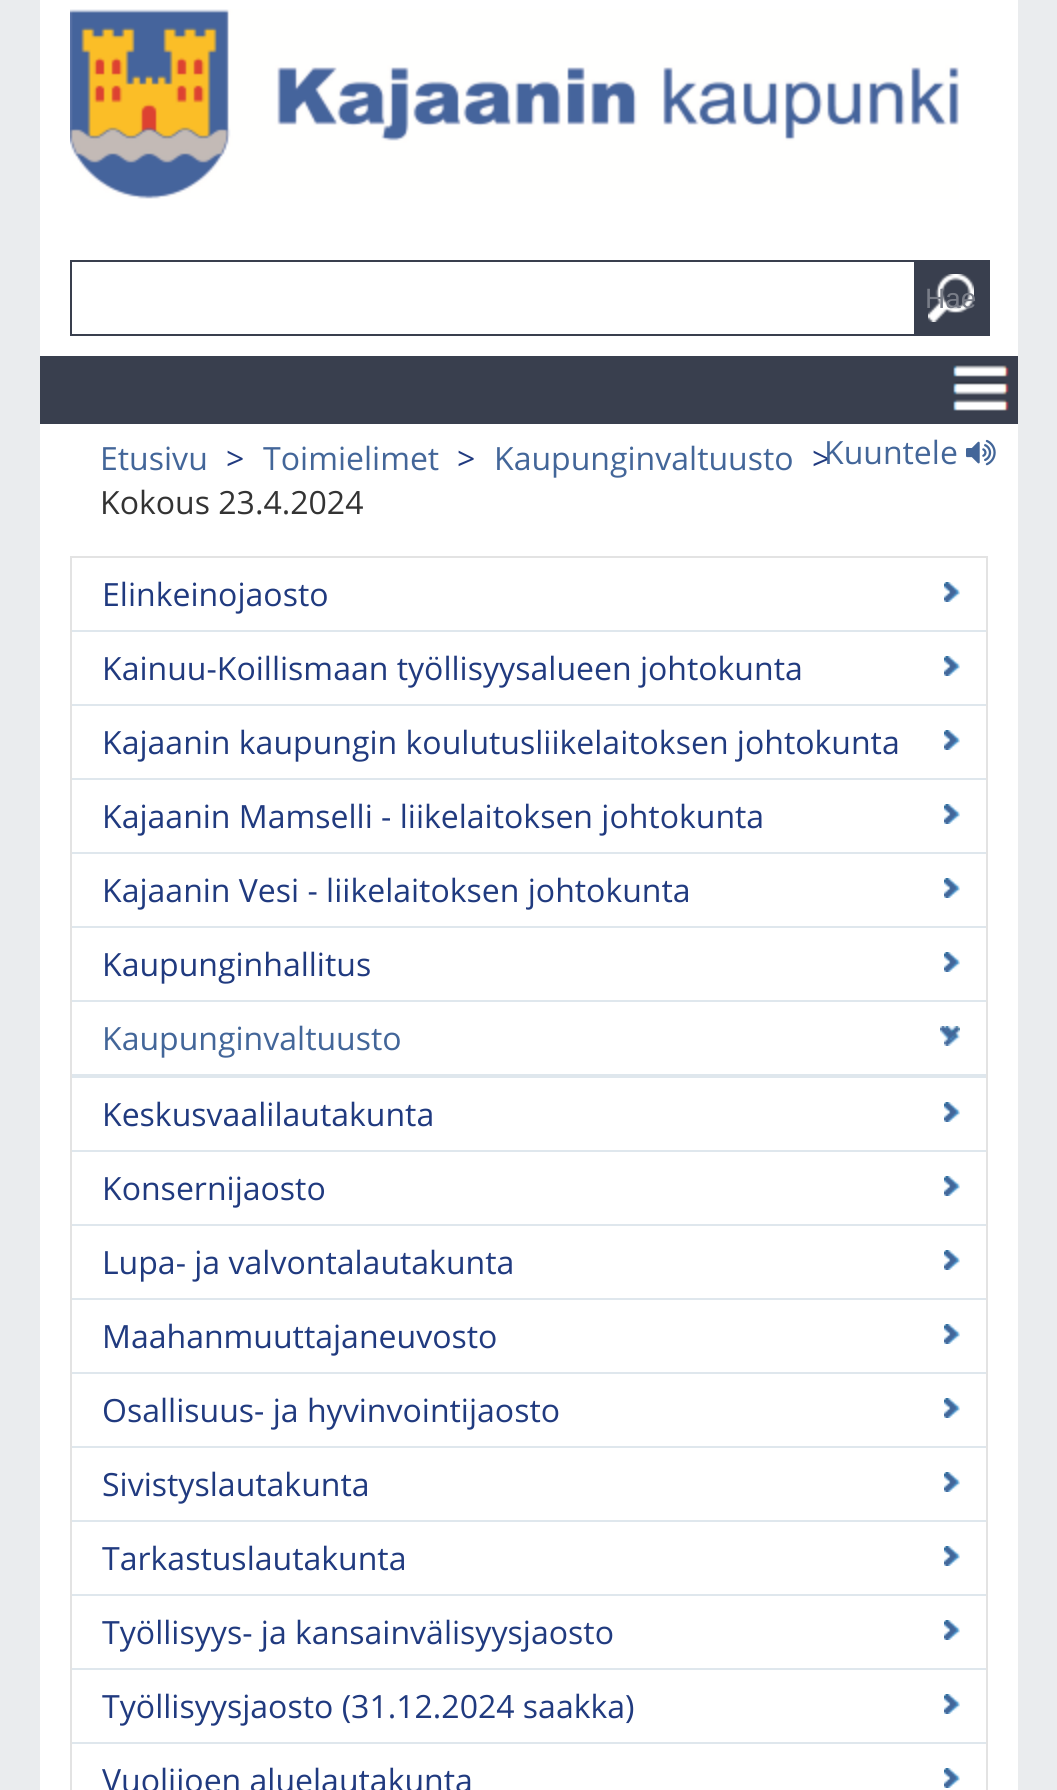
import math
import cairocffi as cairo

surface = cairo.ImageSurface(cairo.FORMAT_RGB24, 1057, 1790)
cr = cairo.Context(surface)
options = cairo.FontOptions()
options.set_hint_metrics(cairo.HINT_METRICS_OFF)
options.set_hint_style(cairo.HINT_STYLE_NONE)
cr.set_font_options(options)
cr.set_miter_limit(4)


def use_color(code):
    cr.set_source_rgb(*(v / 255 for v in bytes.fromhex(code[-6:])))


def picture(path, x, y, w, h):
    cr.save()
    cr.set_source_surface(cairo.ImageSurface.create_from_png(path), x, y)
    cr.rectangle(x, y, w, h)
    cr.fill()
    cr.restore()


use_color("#eaecee")
cr.paint()
use_color("#ffffff")
cr.rectangle(40, 0, 978, 356)
cr.fill()
use_color("#393f4e")
cr.rectangle(40, 356, 902, 68)
cr.fill()
picture("img1.png", 942, 356, 76, 68)
picture("img2.png", 70, 9, 889, 190)
cr.rectangle(70, 260, 844, 2)
cr.fill()
cr.rectangle(70, 334, 844, 2)
cr.fill()
cr.rectangle(70, 260, 2, 76)
cr.fill()
cr.rectangle(914, 260, 76, 76)
cr.fill()
picture("img3.png", 928, 274, 46, 48)
cr.select_font_face("Liberation Sans")
cr.set_font_size(28)
use_color("#797d88")
cr.move_to(925, 308)
cr.show_text("Hae")
use_color("#ffffff")
cr.rectangle(40, 424, 978, 1366)
cr.fill()
cr.select_font_face("Open Sans")
cr.set_font_size(32)
use_color("#436699")
cr.move_to(100, 470)
cr.show_text("Etusivu")
use_color("#203a7f")
cr.move_to(226, 470)
cr.show_text(">")
use_color("#436699")
cr.move_to(263, 470)
cr.show_text("Toimielimet")
use_color("#203a7f")
cr.move_to(457, 470)
cr.show_text(">")
use_color("#436699")
cr.move_to(494, 470)
cr.show_text("Kaupunginvaltuusto")
use_color("#203a7f")
cr.move_to(812, 470)
cr.show_text(">")
use_color("#333333")
cr.move_to(100, 514)
cr.show_text("Kokous 23.4.2024")
use_color("#436699")
cr.move_to(824, 464)
cr.show_text("Kuuntele")
picture("img4.png", 966, 439, 30, 27)
cr.rectangle(71, 557, 916, 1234)
use_color("#e3e3e3")
cr.stroke()
picture("img5.png", 944, 582, 16, 20)
use_color("#dfe7ed")
cr.rectangle(72, 630, 914, 2)
cr.fill()
picture("img6.png", 944, 582, 16, 20)
use_color("#203a7f")
cr.move_to(102, 606)
cr.show_text("Elinkeinojaosto")
picture("img5.png", 944, 656, 16, 20)
use_color("#dfe7ed")
cr.rectangle(72, 704, 914, 2)
cr.fill()
picture("img6.png", 944, 656, 16, 20)
use_color("#203a7f")
cr.move_to(102, 680)
cr.show_text("Kainuu-Koillismaan työllisyysalueen johtokunta")
picture("img5.png", 944, 730, 16, 20)
use_color("#dfe7ed")
cr.rectangle(72, 778, 914, 2)
cr.fill()
picture("img6.png", 944, 730, 16, 20)
use_color("#203a7f")
cr.move_to(102, 754)
cr.show_text("Kajaanin kaupungin koulutusliikelaitoksen johtokunta")
picture("img5.png", 944, 804, 16, 20)
use_color("#dfe7ed")
cr.rectangle(72, 852, 914, 2)
cr.fill()
picture("img6.png", 944, 804, 16, 20)
use_color("#203a7f")
cr.move_to(102, 828)
cr.show_text("Kajaanin Mamselli - liikelaitoksen johtokunta")
picture("img5.png", 944, 878, 16, 20)
use_color("#dfe7ed")
cr.rectangle(72, 926, 914, 2)
cr.fill()
picture("img6.png", 944, 878, 16, 20)
use_color("#203a7f")
cr.move_to(102, 902)
cr.show_text("Kajaanin Vesi - liikelaitoksen johtokunta")
picture("img5.png", 944, 952, 16, 20)
use_color("#dfe7ed")
cr.rectangle(72, 1000, 914, 2)
cr.fill()
picture("img6.png", 944, 952, 16, 20)
use_color("#203a7f")
cr.move_to(102, 976)
cr.show_text("Kaupunginhallitus")
picture("img5.png", 944, 1026, 16, 20)
use_color("#dfe7ed")
cr.rectangle(72, 1074, 914, 4)
cr.fill()
picture("img7.png", 940, 1026, 20, 16)
use_color("#436699")
cr.move_to(102, 1050)
cr.show_text("Kaupunginvaltuusto")
picture("img5.png", 944, 1102, 16, 20)
use_color("#dfe7ed")
cr.rectangle(72, 1150, 914, 2)
cr.fill()
picture("img6.png", 944, 1102, 16, 20)
use_color("#203a7f")
cr.move_to(102, 1126)
cr.show_text("Keskusvaalilautakunta")
picture("img5.png", 944, 1176, 16, 20)
use_color("#dfe7ed")
cr.rectangle(72, 1224, 914, 2)
cr.fill()
picture("img6.png", 944, 1176, 16, 20)
use_color("#203a7f")
cr.move_to(102, 1200)
cr.show_text("Konsernijaosto")
picture("img5.png", 944, 1250, 16, 20)
use_color("#dfe7ed")
cr.rectangle(72, 1298, 914, 2)
cr.fill()
picture("img6.png", 944, 1250, 16, 20)
use_color("#203a7f")
cr.move_to(102, 1274)
cr.show_text("Lupa- ja valvontalautakunta")
picture("img5.png", 944, 1324, 16, 20)
use_color("#dfe7ed")
cr.rectangle(72, 1372, 914, 2)
cr.fill()
picture("img6.png", 944, 1324, 16, 20)
use_color("#203a7f")
cr.move_to(102, 1348)
cr.show_text("Maahanmuuttajaneuvosto")
picture("img5.png", 944, 1398, 16, 20)
use_color("#dfe7ed")
cr.rectangle(72, 1446, 914, 2)
cr.fill()
picture("img6.png", 944, 1398, 16, 20)
use_color("#203a7f")
cr.move_to(102, 1422)
cr.show_text("Osallisuus- ja hyvinvointijaosto")
picture("img5.png", 944, 1472, 16, 20)
use_color("#dfe7ed")
cr.rectangle(72, 1520, 914, 2)
cr.fill()
picture("img6.png", 944, 1472, 16, 20)
use_color("#203a7f")
cr.move_to(102, 1496)
cr.show_text("Sivistyslautakunta")
picture("img5.png", 944, 1546, 16, 20)
use_color("#dfe7ed")
cr.rectangle(72, 1594, 914, 2)
cr.fill()
picture("img6.png", 944, 1546, 16, 20)
use_color("#203a7f")
cr.move_to(102, 1570)
cr.show_text("Tarkastuslautakunta")
picture("img5.png", 944, 1620, 16, 20)
use_color("#dfe7ed")
cr.rectangle(72, 1668, 914, 2)
cr.fill()
picture("img6.png", 944, 1620, 16, 20)
use_color("#203a7f")
cr.move_to(102, 1644)
cr.show_text("Työllisyys- ja kansainvälisyysjaosto")
picture("img5.png", 944, 1694, 16, 20)
use_color("#dfe7ed")
cr.rectangle(72, 1742, 914, 2)
cr.fill()
picture("img6.png", 944, 1694, 16, 20)
use_color("#203a7f")
cr.move_to(102, 1718)
cr.show_text("Työllisyysjaosto (31.12.2024 saakka)")
picture("img5.png", 944, 1768, 16, 20)
picture("img6.png", 944, 1768, 16, 20)
cr.move_to(102, 1792)
cr.show_text("Vuolijoen aluelautakunta")
surface.write_to_png("result.png")
